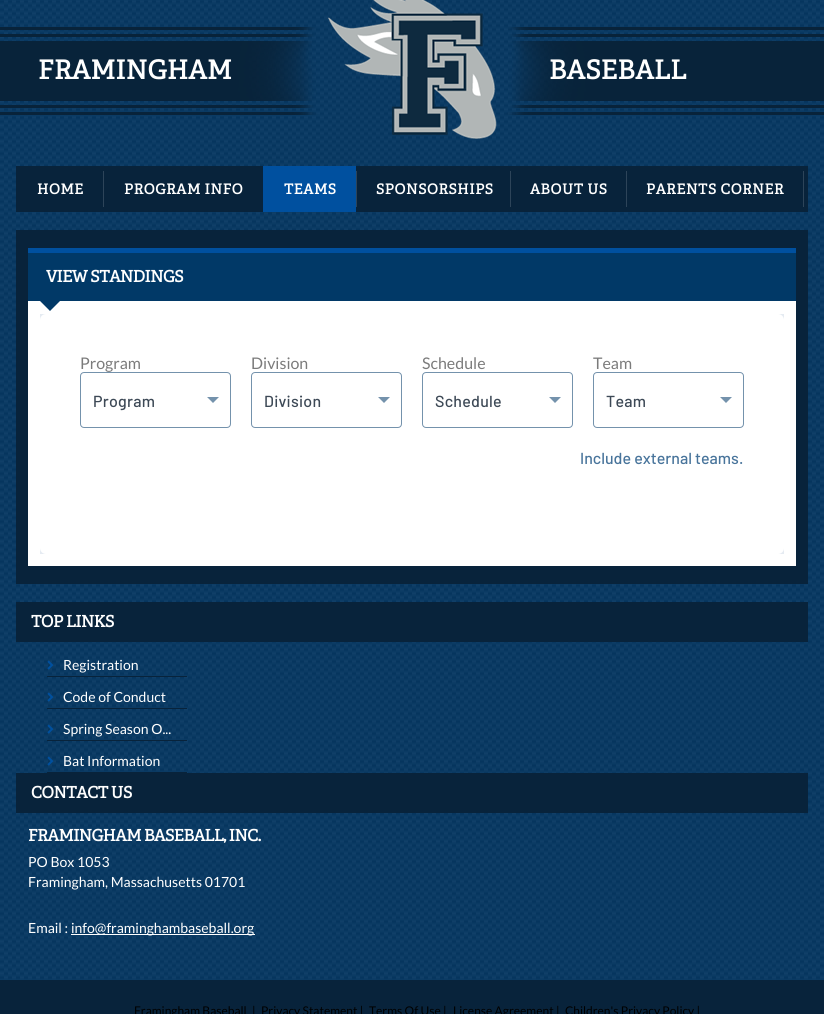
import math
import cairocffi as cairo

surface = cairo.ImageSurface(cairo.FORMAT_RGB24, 824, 1014)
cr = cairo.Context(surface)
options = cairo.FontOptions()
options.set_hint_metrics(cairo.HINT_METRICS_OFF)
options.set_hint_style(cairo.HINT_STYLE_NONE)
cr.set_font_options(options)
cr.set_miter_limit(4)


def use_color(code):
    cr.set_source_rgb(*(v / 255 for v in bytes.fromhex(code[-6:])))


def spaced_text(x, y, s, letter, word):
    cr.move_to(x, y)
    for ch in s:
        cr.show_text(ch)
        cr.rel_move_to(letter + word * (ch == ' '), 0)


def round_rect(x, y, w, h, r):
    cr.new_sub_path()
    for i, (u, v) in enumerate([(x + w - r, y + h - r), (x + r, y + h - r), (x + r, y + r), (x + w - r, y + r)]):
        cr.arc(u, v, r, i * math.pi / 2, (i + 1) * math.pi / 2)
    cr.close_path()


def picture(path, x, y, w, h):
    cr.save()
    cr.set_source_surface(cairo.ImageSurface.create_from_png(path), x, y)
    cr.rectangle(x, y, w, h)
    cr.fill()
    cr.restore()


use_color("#ffffff")
cr.paint()
picture("img1.png", 0, 0, 824, 980)
picture("img2.png", 0, 27, 824, 88)
picture("img3.png", 328, 0, 169, 139)
cr.select_font_face("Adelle", cairo.FONT_SLANT_NORMAL, cairo.FONT_WEIGHT_BOLD)
cr.set_font_size(26)
use_color("#ffffff")
spaced_text(38, 79, "FRAMINGHAM", 0.25, 0)
spaced_text(549, 79, "BASEBALL", 0.25, 0)
use_color("#08233b")
cr.rectangle(16, 166, 792, 46)
cr.fill()
cr.set_font_size(14)
use_color("#ffffff")
spaced_text(37, 194, "HOME", 0.6, 0)
use_color("#2d4459")
cr.rectangle(103, 171, 1, 36)
cr.fill()
use_color("#ffffff")
spaced_text(124, 194, "PROGRAM INFO", 0.6, 0)
use_color("#00509f")
cr.rectangle(263, 166, 93, 46)
cr.fill()
use_color("#ffffff")
spaced_text(284, 194, "TEAMS", 0.6, 0)
use_color("#2d4459")
cr.rectangle(356, 171, 1, 36)
cr.fill()
use_color("#ffffff")
spaced_text(376, 194, "SPONSORSHIPS", 0.6, 0)
use_color("#2d4459")
cr.rectangle(510, 171, 1, 36)
cr.fill()
use_color("#ffffff")
spaced_text(530, 194, "ABOUT US", 0.6, 0)
use_color("#2d4459")
cr.rectangle(626, 171, 1, 36)
cr.fill()
use_color("#ffffff")
spaced_text(646, 194, "PARENTS CORNER", 0.6, 0)
use_color("#2d4459")
cr.rectangle(803, 171, 1, 36)
cr.fill()
use_color("#08233b")
cr.rectangle(16, 230, 792, 354)
cr.fill()
use_color("#013967")
cr.rectangle(28, 253, 768, 48)
cr.fill()
use_color("#00509f")
cr.rectangle(28, 248, 768, 5)
cr.fill()
cr.set_font_size(16)
use_color("#ffffff")
spaced_text(46, 282, "VIEW STANDINGS", -0.5, 0)
cr.rectangle(28, 301, 768, 265)
cr.fill()
use_color("#013967")
cr.new_path()
cr.move_to(40, 301)
cr.line_to(60, 301)
cr.line_to(50, 311)
cr.close_path()
cr.fill()
use_color("#e5ebf2")
cr.rectangle(40, 314, 744, 240)
cr.fill()
use_color("#ffffff")
round_rect(40, 314, 744, 240, 6)
cr.fill()
cr.select_font_face("Lato")
use_color("#7b7b7b")
cr.move_to(80, 369)
cr.show_text("Program")
round_rect(80.5, 372.5, 150, 55, 3.5)
use_color("#7492ac")
cr.set_line_width(1)
cr.stroke()
cr.select_font_face("Barlow Medium")
use_color("#3d4956")
spaced_text(93, 407, "Program", 0.25, 0)
use_color("#7492ac")
cr.new_path()
cr.move_to(207, 397)
cr.line_to(219, 397)
cr.line_to(213, 403)
cr.close_path()
cr.fill()
cr.select_font_face("Lato")
use_color("#7b7b7b")
cr.move_to(251, 369)
cr.show_text("Division")
round_rect(251.5, 372.5, 150, 55, 3.5)
use_color("#7492ac")
cr.stroke()
cr.select_font_face("Barlow Medium")
use_color("#3d4956")
spaced_text(264, 407, "Division", 0.25, 0)
use_color("#7492ac")
cr.new_path()
cr.move_to(378, 397)
cr.line_to(390, 397)
cr.line_to(384, 403)
cr.close_path()
cr.fill()
cr.select_font_face("Lato")
use_color("#7b7b7b")
cr.move_to(422, 369)
cr.show_text("Schedule")
round_rect(422.5, 372.5, 150, 55, 3.5)
use_color("#7492ac")
cr.stroke()
cr.select_font_face("Barlow Medium")
use_color("#3d4956")
spaced_text(435, 407, "Schedule", 0.25, 0)
use_color("#7492ac")
cr.new_path()
cr.move_to(549, 397)
cr.line_to(561, 397)
cr.line_to(555, 403)
cr.close_path()
cr.fill()
cr.select_font_face("Lato")
use_color("#7b7b7b")
cr.move_to(593, 369)
cr.show_text("Team")
round_rect(593.5, 372.5, 150, 55, 3.5)
use_color("#7492ac")
cr.stroke()
cr.select_font_face("Barlow Medium")
use_color("#3d4956")
spaced_text(606, 407, "Team", 0.25, 0)
use_color("#7492ac")
cr.new_path()
cr.move_to(720, 397)
cr.line_to(732, 397)
cr.line_to(726, 403)
cr.close_path()
cr.fill()
use_color("#48749b")
cr.move_to(580, 464)
cr.show_text("Include external teams.")
use_color("#08233b")
cr.rectangle(16, 602, 792, 40)
cr.fill()
cr.select_font_face("Adelle", cairo.FONT_SLANT_NORMAL, cairo.FONT_WEIGHT_BOLD)
use_color("#ffffff")
spaced_text(31, 627, "TOP LINKS", -0.5, 0)
use_color("#08233b")
cr.rectangle(47, 676, 140, 1)
cr.fill()
picture("img4.png", 47, 660, 7, 10)
cr.select_font_face("Lato")
cr.set_font_size(14)
use_color("#ffffff")
cr.move_to(63, 670)
cr.show_text("Registration")
use_color("#08233b")
cr.rectangle(47, 708, 140, 1)
cr.fill()
picture("img4.png", 47, 692, 7, 10)
use_color("#ffffff")
cr.move_to(63, 702)
cr.show_text("Code of Conduct")
use_color("#08233b")
cr.rectangle(47, 740, 140, 1)
cr.fill()
picture("img4.png", 47, 724, 7, 10)
use_color("#ffffff")
cr.move_to(63, 734)
cr.show_text("Spring Season O...")
use_color("#08233b")
cr.rectangle(47, 772, 140, 1)
cr.fill()
picture("img4.png", 47, 756, 7, 10)
use_color("#ffffff")
cr.move_to(63, 766)
cr.show_text("Bat Information")
use_color("#08233b")
cr.rectangle(16, 773, 792, 40)
cr.fill()
cr.select_font_face("Adelle", cairo.FONT_SLANT_NORMAL, cairo.FONT_WEIGHT_BOLD)
cr.set_font_size(16)
use_color("#ffffff")
spaced_text(31, 798, "CONTACT US", -0.5, 0)
spaced_text(28, 841, "FRAMINGHAM BASEBALL, INC.", -0.5, 0)
cr.select_font_face("Lato")
cr.set_font_size(14)
cr.move_to(28, 867)
cr.show_text("PO Box 1053")
cr.move_to(28, 887)
cr.show_text("Framingham, Massachusetts 01701")
cr.move_to(28, 933)
cr.show_text("Email :")
cr.rectangle(71, 934, 184, 1)
cr.fill()
cr.move_to(71, 933)
cr.show_text("info@framinghambaseball.org")
use_color("#08233b")
cr.rectangle(0, 980, 824, 34)
cr.fill()
cr.set_font_size(12)
use_color("#000000")
cr.move_to(134, 1015)
cr.show_text("Framingham Baseball")
cr.move_to(252, 1015)
cr.show_text("|")
cr.move_to(261, 1015)
cr.show_text("Privacy Statement |")
cr.move_to(369, 1015)
cr.show_text("Terms Of Use |")
cr.move_to(453, 1015)
cr.show_text("License Agreement |")
cr.move_to(565, 1015)
cr.show_text("Children's Privacy Policy |")
surface.write_to_png("result.png")
